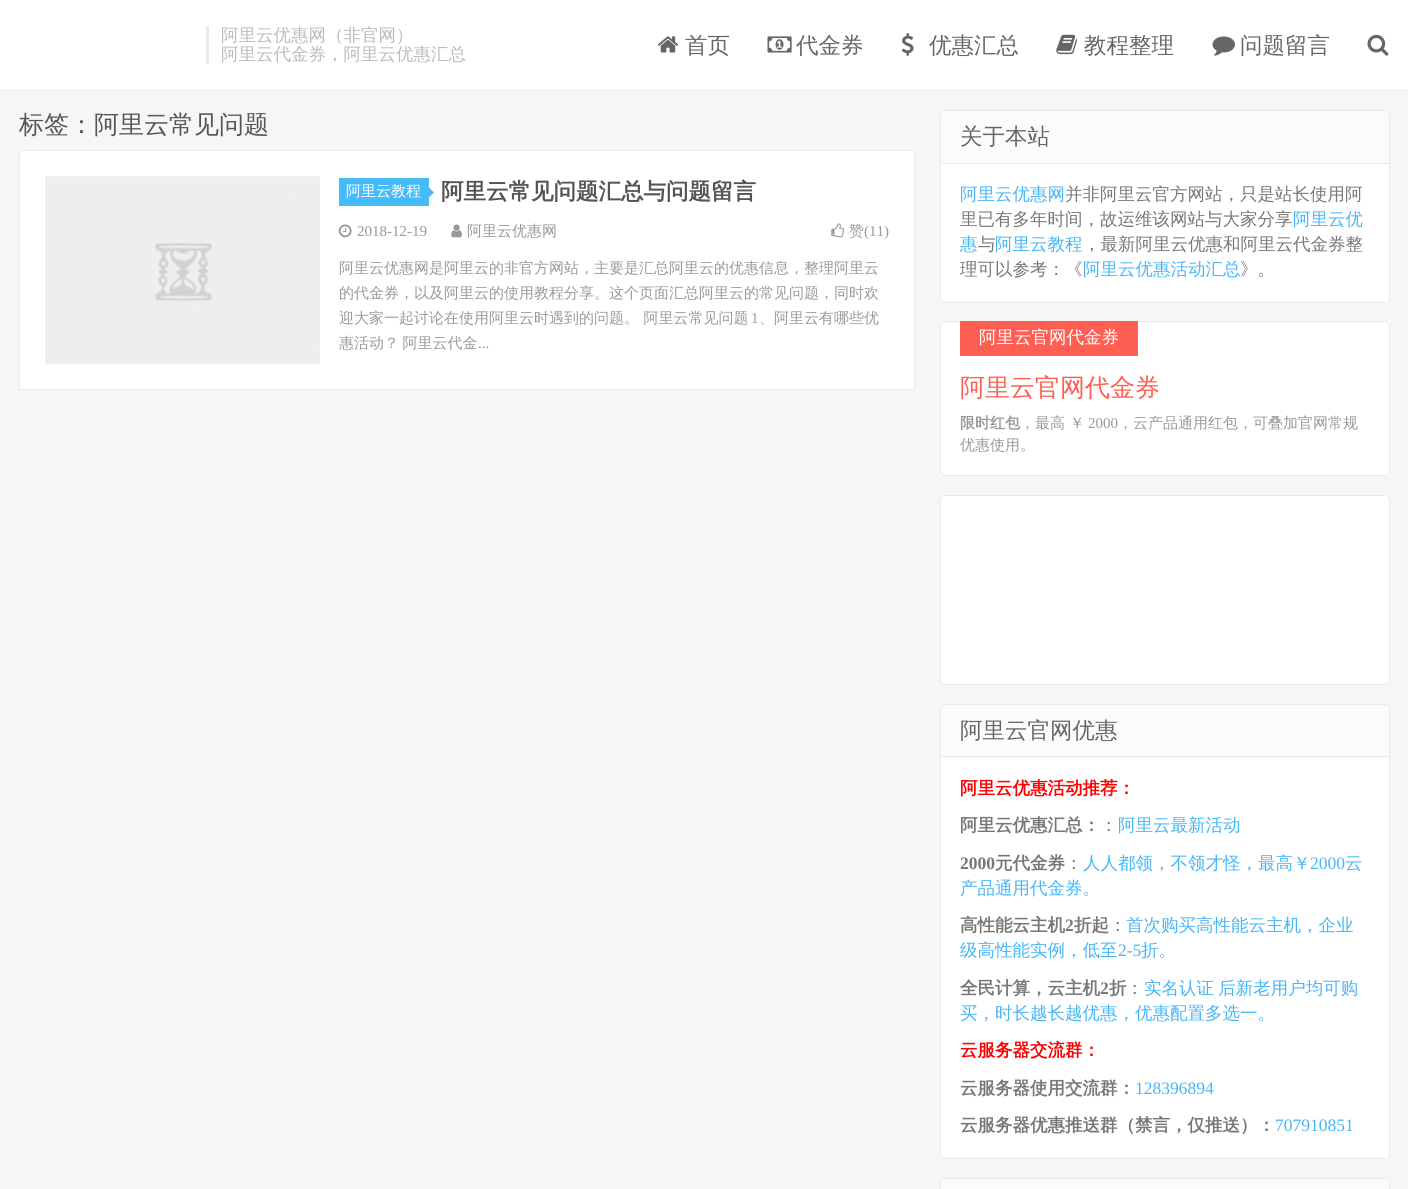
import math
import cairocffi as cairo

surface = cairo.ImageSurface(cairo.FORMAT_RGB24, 1408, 1189)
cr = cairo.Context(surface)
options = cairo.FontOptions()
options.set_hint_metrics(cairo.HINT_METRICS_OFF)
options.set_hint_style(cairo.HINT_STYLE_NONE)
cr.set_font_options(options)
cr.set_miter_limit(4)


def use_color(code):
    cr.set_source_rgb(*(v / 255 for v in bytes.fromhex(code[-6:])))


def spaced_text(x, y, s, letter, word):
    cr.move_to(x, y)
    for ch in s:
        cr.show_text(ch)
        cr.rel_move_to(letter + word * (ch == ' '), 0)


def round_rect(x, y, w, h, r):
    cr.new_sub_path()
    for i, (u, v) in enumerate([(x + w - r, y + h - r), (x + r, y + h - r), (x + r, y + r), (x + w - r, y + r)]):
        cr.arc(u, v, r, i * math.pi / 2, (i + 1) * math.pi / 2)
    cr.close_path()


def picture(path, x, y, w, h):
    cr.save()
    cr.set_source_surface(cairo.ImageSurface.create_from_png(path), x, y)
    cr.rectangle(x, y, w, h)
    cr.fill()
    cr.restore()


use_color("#f6f6f6")
cr.paint()
use_color("#ffffff")
cr.rectangle(0, 0, 1408, 90)
cr.fill()
use_color("#ebebeb")
cr.rectangle(0, 90, 1408, 1)
cr.fill()
use_color("#eaeaea")
cr.rectangle(206, 26, 3, 38)
cr.fill()
cr.select_font_face("WenQuanYi Zen Hei Medium")
cr.set_font_size(17.5)
use_color("#bbbbbb")
cr.move_to(221, 41)
cr.show_text("阿里云优惠网（非官网）")
cr.move_to(221, 60)
cr.show_text("阿里云代金券，阿里云优惠汇总")
picture("img1.png", 657, 36, 21, 17)
cr.set_font_size(22.5)
use_color("#666666")
cr.move_to(685, 53)
cr.show_text("首页")
picture("img2.png", 767, 36, 25, 17)
cr.move_to(796, 53)
cr.show_text("代金券")
picture("img3.png", 901, 33, 13, 23)
cr.move_to(929, 53)
cr.show_text("优惠汇总")
picture("img4.png", 1056, 34, 22, 21)
cr.move_to(1084, 53)
cr.show_text("教程整理")
picture("img5.png", 1212, 36, 23, 20)
cr.move_to(1240, 53)
cr.show_text("问题留言")
picture("img6.png", 1367, 34, 22, 22)
cr.set_font_size(25)
use_color("#555555")
cr.move_to(19, 133)
cr.show_text("标签：阿里云常见问题")
use_color("#ffffff")
cr.new_path()
cr.move_to(24, 150.5)
cr.line_to(910, 150.5)
cr.curve_to(912.5, 150.5, 914.5, 152.5, 914.5, 155)
cr.line_to(914.5, 389.5)
cr.line_to(19.5, 389.5)
cr.line_to(19.5, 155)
cr.curve_to(19.5, 152.5, 21.5, 150.5, 24, 150.5)
cr.close_path()
cr.fill_preserve()
use_color("#eaeaea")
cr.set_line_width(1)
cr.stroke()
picture("img7.png", 45, 176, 275, 188)
use_color("#45bcf9")
cr.rectangle(339, 178, 90, 28)
cr.fill()
cr.set_font_size(15)
use_color("#ffffff")
cr.move_to(346, 196)
cr.show_text("阿里云教程")
use_color("#45bcf9")
cr.new_path()
cr.move_to(429, 197.5)
cr.line_to(429, 187.5)
cr.line_to(434, 192.5)
cr.close_path()
cr.fill()
cr.select_font_face("WenQuanYi Zen Hei", cairo.FONT_SLANT_NORMAL, cairo.FONT_WEIGHT_BOLD)
cr.set_font_size(22.5)
use_color("#555555")
cr.move_to(441, 199)
cr.show_text("阿里云常见问题汇总与问题留言")
picture("img8.png", 338, 224, 14, 14)
cr.select_font_face("Liberation Serif")
cr.set_font_size(15)
use_color("#999999")
cr.move_to(357, 236)
cr.show_text("2018-12-19")
picture("img9.png", 451, 224, 11, 14)
cr.select_font_face("WenQuanYi Zen Hei Medium")
cr.move_to(467, 236)
cr.show_text("阿里云优惠网")
picture("img10.png", 831, 223, 14, 15)
cr.move_to(849, 236)
cr.show_text("赞")
cr.select_font_face("Liberation Serif")
cr.move_to(864, 236)
cr.show_text("(11)")
cr.select_font_face("WenQuanYi Zen Hei Medium")
cr.move_to(339, 273)
cr.show_text("阿里云优惠网是阿里云的非官方网站，主要是汇总阿里云的优惠信息，整理阿里云")
cr.move_to(339, 298)
cr.show_text("的代金券，以及阿里云的使用教程分享。这个页面汇总阿里云的常见问题，同时欢")
cr.move_to(339, 323)
cr.show_text("迎大家一起讨论在使用阿里云时遇到的问题。 阿里云常见问题")
cr.select_font_face("Liberation Serif")
cr.move_to(751, 323)
cr.show_text("1")
cr.select_font_face("WenQuanYi Zen Hei Medium")
cr.move_to(759, 323)
cr.show_text("、阿里云有哪些优")
spaced_text(339, 348, "惠活动？ 阿里云代金", 0, -1)
cr.select_font_face("Liberation Serif")
cr.move_to(478, 348)
cr.show_text("...")
use_color("#ffffff")
round_rect(940.5, 110.5, 449, 192, 4.5)
cr.fill_preserve()
use_color("#eaeaea")
cr.stroke()
use_color("#fbfbfb")
cr.new_path()
cr.move_to(945, 111)
cr.line_to(1385, 111)
cr.curve_to(1387, 111, 1389, 113, 1389, 115)
cr.line_to(1389, 164)
cr.line_to(941, 164)
cr.line_to(941, 115)
cr.curve_to(941, 113, 943, 111, 945, 111)
cr.close_path()
cr.fill()
use_color("#eaeaea")
cr.rectangle(941, 163, 448, 1)
cr.fill()
cr.select_font_face("WenQuanYi Zen Hei Medium")
cr.set_font_size(22.5)
use_color("#666666")
cr.move_to(960, 144)
cr.show_text("关于本站")
cr.set_font_size(17.5)
use_color("#45b6f7")
cr.move_to(960, 200)
cr.show_text("阿里云优惠网")
use_color("#777777")
cr.move_to(1065, 200)
cr.show_text("并非阿里云官方网站，只是站长使用阿")
cr.move_to(960, 225)
cr.show_text("里已有多年时间，故运维该网站与大家分享")
use_color("#45b6f7")
cr.move_to(1293, 225)
cr.show_text("阿里云优")
cr.move_to(960, 250)
cr.show_text("惠")
use_color("#777777")
cr.move_to(978, 250)
cr.show_text("与")
use_color("#45b6f7")
cr.move_to(995, 250)
cr.show_text("阿里云教程")
use_color("#777777")
cr.move_to(1083, 250)
cr.show_text("，最新阿里云优惠和阿里云代金券整")
cr.move_to(960, 275)
cr.show_text("理可以参考：《")
use_color("#45b6f7")
cr.move_to(1083, 275)
cr.show_text("阿里云优惠活动汇总")
use_color("#777777")
cr.move_to(1240, 275)
cr.show_text("》。")
use_color("#ffffff")
cr.rectangle(940, 321, 450, 155)
cr.fill()
round_rect(940.5, 321.5, 449, 154, 4.5)
use_color("#eaeaea")
cr.stroke()
use_color("#ff5e52")
cr.rectangle(960, 321, 178, 35)
cr.fill()
use_color("#ffffff")
cr.move_to(979, 343)
cr.show_text("阿里云官网代金券")
cr.set_font_size(25)
use_color("#ff5e52")
cr.move_to(960, 396)
cr.show_text("阿里云官网代金券")
cr.select_font_face("WenQuanYi Zen Hei", cairo.FONT_SLANT_NORMAL, cairo.FONT_WEIGHT_BOLD)
cr.set_font_size(15)
use_color("#999999")
cr.move_to(960, 428)
cr.show_text("限时红包")
cr.select_font_face("WenQuanYi Zen Hei Medium")
cr.move_to(1020, 428)
cr.show_text("，最高 ￥")
cr.select_font_face("Liberation Serif")
cr.move_to(1088, 428)
cr.show_text("2000")
cr.select_font_face("WenQuanYi Zen Hei Medium")
cr.move_to(1118, 428)
cr.show_text("，云产品通用红包，可叠加官网常规")
cr.move_to(960, 450)
cr.show_text("优惠使用。")
use_color("#ffffff")
round_rect(940.5, 495.5, 449, 189, 4.5)
cr.fill_preserve()
use_color("#eaeaea")
cr.stroke()
use_color("#ffffff")
round_rect(940.5, 704.5, 449, 454, 4.5)
cr.fill_preserve()
use_color("#eaeaea")
cr.stroke()
use_color("#fbfbfb")
cr.new_path()
cr.move_to(945, 705)
cr.line_to(1385, 705)
cr.curve_to(1387, 705, 1389, 707, 1389, 709)
cr.line_to(1389, 758)
cr.line_to(941, 758)
cr.line_to(941, 709)
cr.curve_to(941, 707, 943, 705, 945, 705)
cr.close_path()
cr.fill()
use_color("#eaeaea")
cr.rectangle(941, 756, 448, 1)
cr.fill()
cr.set_font_size(22.5)
use_color("#666666")
cr.move_to(960, 738)
cr.show_text("阿里云官网优惠")
cr.select_font_face("WenQuanYi Zen Hei", cairo.FONT_SLANT_NORMAL, cairo.FONT_WEIGHT_BOLD)
cr.set_font_size(17.5)
use_color("#ff0000")
cr.move_to(960, 794)
cr.show_text("阿里云优惠活动推荐：")
use_color("#777777")
cr.move_to(960, 831)
cr.show_text("阿里云优惠汇总：")
cr.select_font_face("WenQuanYi Zen Hei Medium")
cr.move_to(1100, 831)
cr.show_text("：")
use_color("#45b6f7")
cr.move_to(1118, 831)
cr.show_text("阿里云最新活动")
cr.select_font_face("Liberation Serif", cairo.FONT_SLANT_NORMAL, cairo.FONT_WEIGHT_BOLD)
use_color("#777777")
cr.move_to(960, 869)
cr.show_text("2000")
cr.select_font_face("WenQuanYi Zen Hei", cairo.FONT_SLANT_NORMAL, cairo.FONT_WEIGHT_BOLD)
cr.move_to(995, 869)
cr.show_text("元代金券")
cr.select_font_face("WenQuanYi Zen Hei Medium")
cr.move_to(1065, 869)
cr.show_text("：")
use_color("#45b6f7")
cr.move_to(1083, 869)
cr.show_text("人人都领，不领才怪，最高￥")
cr.select_font_face("Liberation Serif")
cr.move_to(1310, 869)
cr.show_text("2000")
cr.select_font_face("WenQuanYi Zen Hei Medium")
cr.move_to(1345, 869)
cr.show_text("云")
cr.move_to(960, 894)
cr.show_text("产品通用代金券。")
cr.select_font_face("WenQuanYi Zen Hei", cairo.FONT_SLANT_NORMAL, cairo.FONT_WEIGHT_BOLD)
use_color("#777777")
cr.move_to(960, 931)
cr.show_text("高性能云主机")
cr.select_font_face("Liberation Serif", cairo.FONT_SLANT_NORMAL, cairo.FONT_WEIGHT_BOLD)
cr.move_to(1065, 931)
cr.show_text("2")
cr.select_font_face("WenQuanYi Zen Hei", cairo.FONT_SLANT_NORMAL, cairo.FONT_WEIGHT_BOLD)
cr.move_to(1074, 931)
cr.show_text("折起")
cr.select_font_face("WenQuanYi Zen Hei Medium")
cr.move_to(1109, 931)
cr.show_text("：")
use_color("#45b6f7")
cr.move_to(1126, 931)
cr.show_text("首次购买高性能云主机，企业")
cr.move_to(960, 956)
cr.show_text("级高性能实例，低至")
cr.select_font_face("Liberation Serif")
cr.move_to(1118, 956)
cr.show_text("2-5")
cr.select_font_face("WenQuanYi Zen Hei Medium")
cr.move_to(1141, 956)
cr.show_text("折。")
cr.select_font_face("WenQuanYi Zen Hei", cairo.FONT_SLANT_NORMAL, cairo.FONT_WEIGHT_BOLD)
use_color("#777777")
cr.move_to(960, 994)
cr.show_text("全民计算，云主机")
cr.select_font_face("Liberation Serif", cairo.FONT_SLANT_NORMAL, cairo.FONT_WEIGHT_BOLD)
cr.move_to(1100, 994)
cr.show_text("2")
cr.select_font_face("WenQuanYi Zen Hei", cairo.FONT_SLANT_NORMAL, cairo.FONT_WEIGHT_BOLD)
cr.move_to(1109, 994)
cr.show_text("折")
cr.select_font_face("WenQuanYi Zen Hei Medium")
cr.move_to(1126, 994)
cr.show_text("：")
use_color("#45b6f7")
spaced_text(1144, 994, "实名认证 后新老用户均可购", 0, -1)
cr.move_to(960, 1019)
cr.show_text("买，时长越长越优惠，优惠配置多选一。")
cr.select_font_face("WenQuanYi Zen Hei", cairo.FONT_SLANT_NORMAL, cairo.FONT_WEIGHT_BOLD)
use_color("#ff0000")
cr.move_to(960, 1056)
cr.show_text("云服务器交流群：")
use_color("#777777")
cr.move_to(960, 1094)
cr.show_text("云服务器使用交流群：")
cr.select_font_face("Liberation Serif")
use_color("#45b6f7")
cr.move_to(1135, 1094)
cr.show_text("128396894")
cr.select_font_face("WenQuanYi Zen Hei", cairo.FONT_SLANT_NORMAL, cairo.FONT_WEIGHT_BOLD)
use_color("#777777")
cr.move_to(960, 1131)
cr.show_text("云服务器优惠推送群（禁言，仅推送）：")
cr.select_font_face("Liberation Serif")
use_color("#45b6f7")
cr.move_to(1275, 1131)
cr.show_text("707910851")
round_rect(940.5, 1178.5, 449, 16, 4.5)
use_color("#eaeaea")
cr.stroke()
use_color("#fbfbfb")
cr.new_path()
cr.move_to(945, 1179)
cr.line_to(1385, 1179)
cr.curve_to(1387, 1179, 1389, 1181, 1389, 1183)
cr.line_to(1389, 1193)
cr.line_to(941, 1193)
cr.line_to(941, 1183)
cr.curve_to(941, 1181, 943, 1179, 945, 1179)
cr.close_path()
cr.fill()
surface.write_to_png("result.png")
